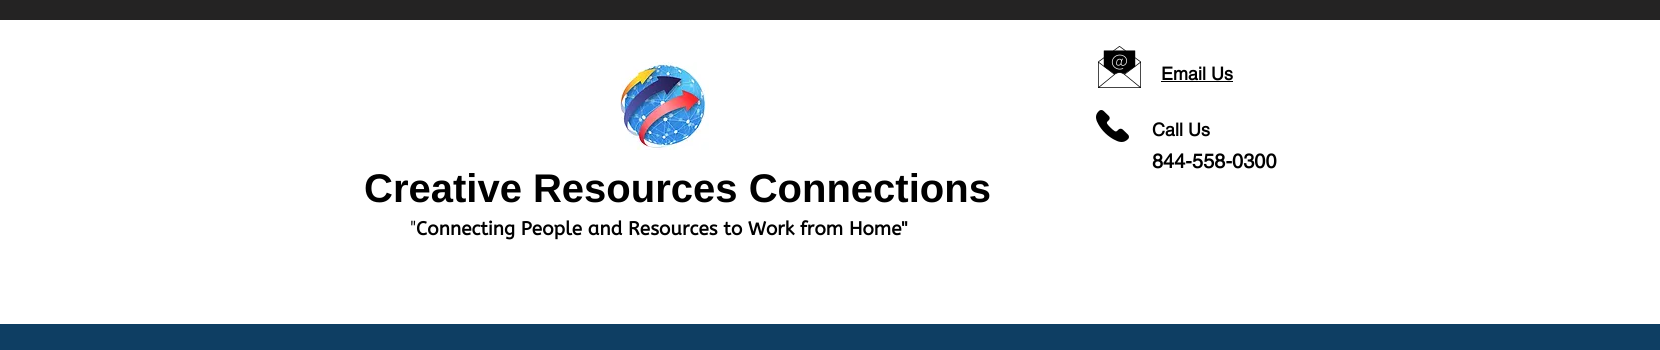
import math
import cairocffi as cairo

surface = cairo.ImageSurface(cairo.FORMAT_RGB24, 1660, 350)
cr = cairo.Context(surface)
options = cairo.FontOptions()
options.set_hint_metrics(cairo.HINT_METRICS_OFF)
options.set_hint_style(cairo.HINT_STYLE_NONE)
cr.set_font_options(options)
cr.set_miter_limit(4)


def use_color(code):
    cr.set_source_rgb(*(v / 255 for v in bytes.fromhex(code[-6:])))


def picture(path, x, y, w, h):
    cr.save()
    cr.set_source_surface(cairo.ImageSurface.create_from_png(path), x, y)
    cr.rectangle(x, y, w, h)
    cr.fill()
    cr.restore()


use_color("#242323")
cr.paint()
use_color("#ffffff")
cr.rectangle(0, 20, 1660, 304)
cr.fill()
picture("img1.png", 1098, 46, 43, 42)
cr.select_font_face("helvetica", cairo.FONT_SLANT_NORMAL, cairo.FONT_WEIGHT_BOLD)
cr.set_font_size(18)
use_color("#000000")
cr.move_to(1161, 80)
cr.show_text("Email Us")
cr.rectangle(1161, 81, 72, 1)
cr.fill()
picture("img2.png", 1096, 110, 33, 32)
cr.move_to(1152, 136)
cr.show_text("Call Us")
cr.set_font_size(20)
cr.move_to(1152, 168)
cr.show_text("844-558-0300")
picture("img3.png", 620, 62, 89, 88)
cr.select_font_face("Liberation Sans", cairo.FONT_SLANT_NORMAL, cairo.FONT_WEIGHT_BOLD)
cr.set_font_size(40)
cr.move_to(364, 202)
cr.show_text("Creative Resources Connections")
cr.select_font_face("Roboto")
cr.set_font_size(19)
cr.move_to(410, 235)
cr.show_text("\"")
cr.select_font_face("ABeeZee", cairo.FONT_SLANT_NORMAL, cairo.FONT_WEIGHT_BOLD)
cr.move_to(416, 235)
cr.show_text("Connecting People and Resources to Work from Home\"")
use_color("#0e3e63")
cr.rectangle(0, 324, 1660, 26)
cr.fill()
surface.write_to_png("result.png")
